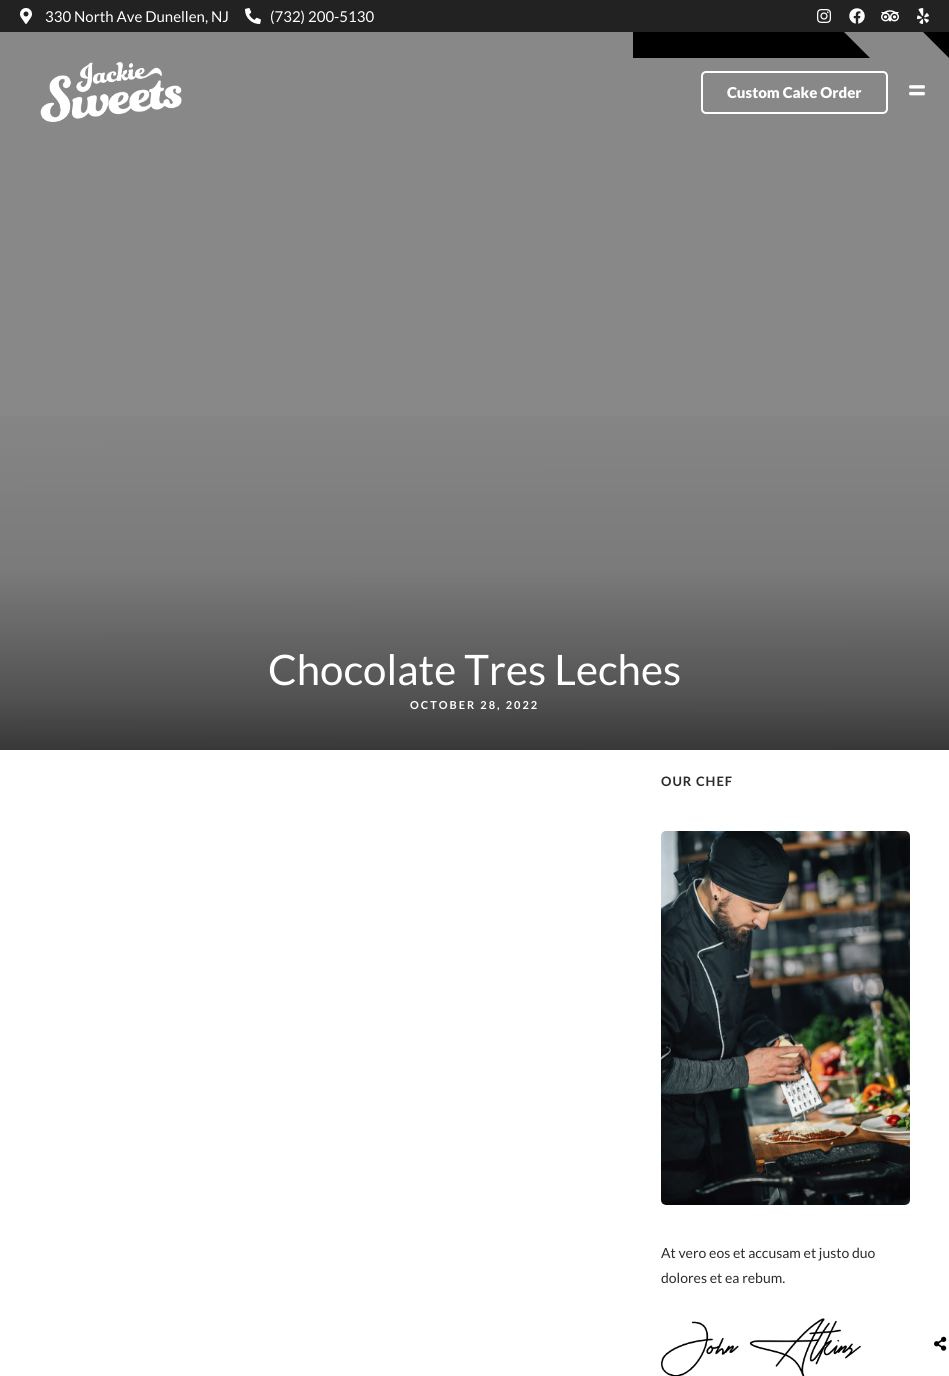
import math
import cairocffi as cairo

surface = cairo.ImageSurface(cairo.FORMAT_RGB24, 949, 1376)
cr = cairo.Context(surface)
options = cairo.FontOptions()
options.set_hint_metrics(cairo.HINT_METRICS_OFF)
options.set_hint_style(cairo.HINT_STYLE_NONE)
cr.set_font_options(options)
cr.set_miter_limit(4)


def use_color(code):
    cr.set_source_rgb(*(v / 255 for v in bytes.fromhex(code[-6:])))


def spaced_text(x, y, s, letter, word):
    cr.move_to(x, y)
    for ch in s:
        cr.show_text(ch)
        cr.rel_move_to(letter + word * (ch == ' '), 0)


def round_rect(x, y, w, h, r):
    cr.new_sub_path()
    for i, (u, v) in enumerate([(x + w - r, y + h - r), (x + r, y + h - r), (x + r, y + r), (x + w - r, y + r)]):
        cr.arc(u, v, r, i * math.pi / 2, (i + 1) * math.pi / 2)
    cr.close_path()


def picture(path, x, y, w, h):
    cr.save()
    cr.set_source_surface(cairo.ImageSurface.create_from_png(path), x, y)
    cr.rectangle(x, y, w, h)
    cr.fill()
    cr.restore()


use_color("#ffffff")
cr.paint()
use_color("#000000")
cr.rectangle(633, 32, 316, 26)
cr.fill()
cr.save()
cr.rectangle(0, 0, 949, 750)
cr.clip()
use_color("#888888")
cr.new_path()
cr.move_to(633, -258)
cr.line_to(0, -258)
cr.line_to(0, 1007)
cr.line_to(949, 1007)
cr.line_to(949, 58)
cr.close_path()
cr.move_to(633, 58)
cr.line_to(633, -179)
cr.line_to(870, 58)
cr.close_path()
cr.fill()
cr.restore()
use_color("#222222")
cr.rectangle(0, 0, 949, 32)
cr.fill()
picture("img1.png", 20, 8, 12, 16)
cr.select_font_face("Lato")
cr.set_font_size(15)
use_color("#ffffff")
cr.move_to(45, 22)
cr.show_text("330 North Ave Dunellen, NJ")
picture("img2.png", 245, 8, 16, 16)
cr.move_to(270, 22)
cr.show_text("(732) 200-5130")
picture("img3.png", 817, 9, 14, 14)
picture("img4.png", 849, 8, 16, 16)
picture("img5.png", 881, 10, 18, 12)
picture("img6.png", 917, 8, 12, 16)
picture("img7.png", 40, 62, 142, 60)
round_rect(702, 72, 185, 41, 4)
cr.stroke()
cr.select_font_face("Lato Black")
cr.move_to(727, 98)
cr.show_text("Custom Cake Order")
picture("img8.png", 909, 85, 16, 11)
gradient = cairo.LinearGradient(474, 0, 475, 750)
gradient.add_color_stop_rgba(0, 0, 0, 0, 0)
gradient.add_color_stop_rgba(0.5, 0, 0, 0, 0)
gradient.add_color_stop_rgba(0.76, 0, 0, 0, 0.1)
gradient.add_color_stop_rgba(0.93, 0, 0, 0, 0.4)
gradient.add_color_stop_rgba(1, 0, 0, 0, 0.59)
cr.set_source(gradient)
cr.rectangle(0, 416, 949, 334)
cr.fill()
cr.select_font_face("Lato")
cr.set_font_size(42)
use_color("#ffffff")
cr.move_to(268, 685)
cr.show_text("Chocolate Tres Leches")
cr.select_font_face("Lato", cairo.FONT_SLANT_NORMAL, cairo.FONT_WEIGHT_BOLD)
cr.set_font_size(11)
spaced_text(410, 709, "OCTOBER 28, 2022", 2, 0)
cr.set_font_size(13)
use_color("#2b2b2b")
spaced_text(661, 786, "OUR CHEF", 1, 0)
picture("img9.png", 661, 831, 249, 374)
cr.select_font_face("Lato")
cr.set_font_size(14)
cr.move_to(661, 1258)
cr.show_text("At vero eos et accusam et justo duo")
cr.move_to(661, 1283)
cr.show_text("dolores et ea rebum.")
picture("img10.png", 661, 1318, 200, 58)
picture("img11.png", 934, 1336, 13, 15)
surface.write_to_png("result.png")
